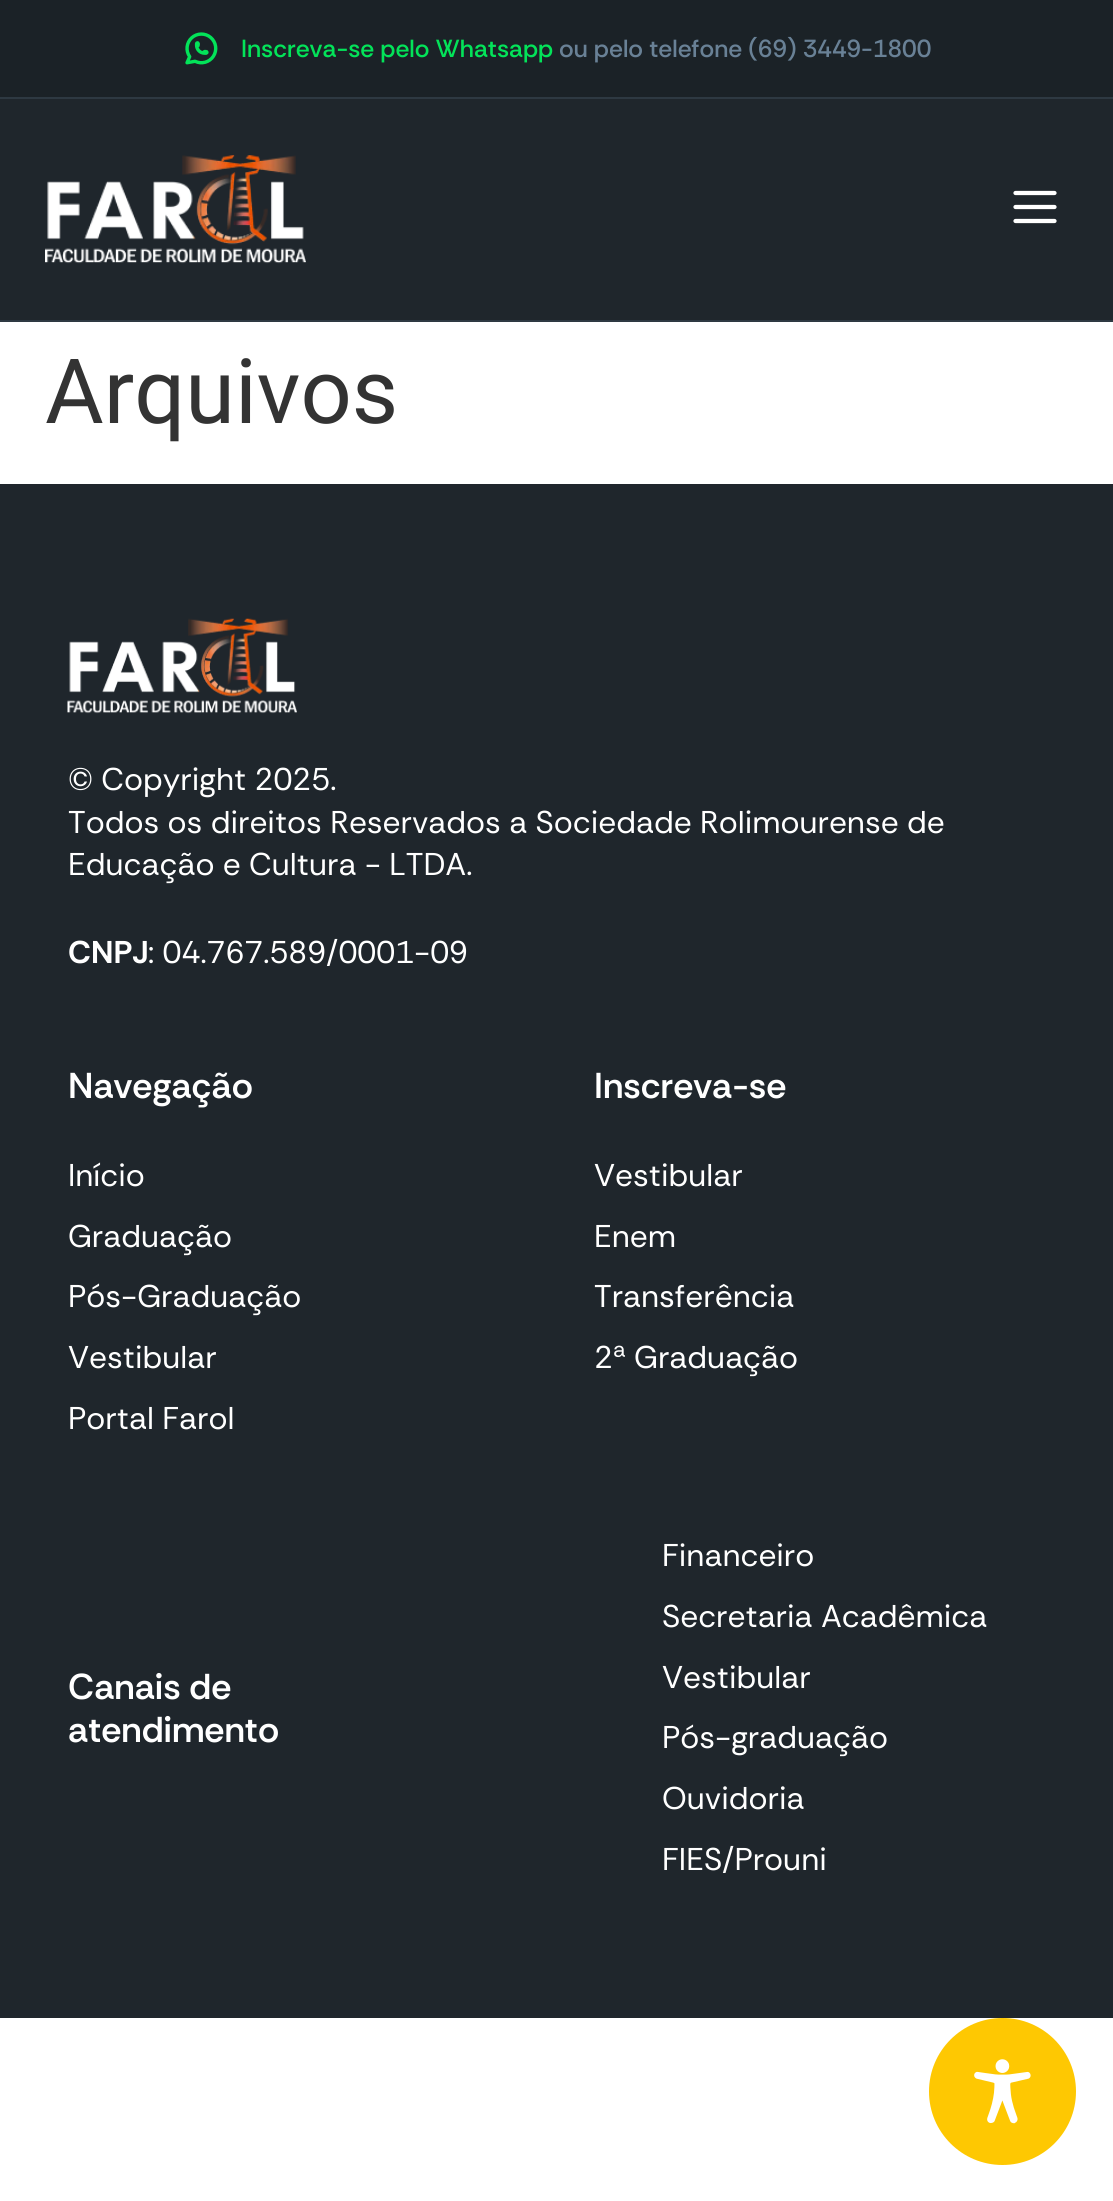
import math
import cairocffi as cairo

surface = cairo.ImageSurface(cairo.FORMAT_RGB24, 1113, 2201)
cr = cairo.Context(surface)
options = cairo.FontOptions()
options.set_hint_metrics(cairo.HINT_METRICS_OFF)
options.set_hint_style(cairo.HINT_STYLE_NONE)
cr.set_font_options(options)
cr.set_miter_limit(4)


def use_color(code):
    cr.set_source_rgb(*(v / 255 for v in bytes.fromhex(code[-6:])))


def picture(path, x, y, w, h):
    cr.save()
    cr.set_source_surface(cairo.ImageSurface.create_from_png(path), x, y)
    cr.rectangle(x, y, w, h)
    cr.fill()
    cr.restore()


use_color("#ffffff")
cr.paint()
use_color("#1b2227")
cr.rectangle(0, 0, 1113, 97)
cr.fill()
picture("img1.png", 185, 32, 33, 33)
cr.select_font_face("Rethink Sans Medium")
cr.set_font_size(24.75)
use_color("#03e359")
cr.move_to(241, 57)
cr.show_text("Inscreva-se pelo Whatsapp")
use_color("#698196")
cr.move_to(559, 57)
cr.show_text("ou pelo telefone (69) 3449-1800")
use_color("#1f262c")
cr.rectangle(0, 99, 1113, 221)
cr.fill()
use_color("#2e3942")
cr.rectangle(0, 97, 1113, 2)
cr.fill()
cr.rectangle(0, 320, 1113, 2)
cr.fill()
picture("img2.png", 45, 155, 261, 109)
cr.new_path()
cr.move_to(1015.5, 193)
cr.line_to(1054.5, 193)
cr.move_to(1015.5, 207)
cr.line_to(1054.5, 207)
cr.move_to(1015.5, 221)
cr.line_to(1054.5, 221)
use_color("#ffffff")
cr.set_line_width(4.2)
cr.set_line_cap(cairo.LINE_CAP_ROUND)
cr.set_line_join(cairo.LINE_JOIN_ROUND)
cr.stroke()
cr.select_font_face("Roboto")
cr.set_font_size(90)
use_color("#333333")
cr.move_to(45, 423)
cr.show_text("Arquivos")
use_color("#1f262c")
cr.rectangle(0, 484, 1113, 1534)
cr.fill()
picture("img3.png", 67, 618, 230, 96)
cr.select_font_face("Rethink Sans")
cr.set_font_size(31.5)
use_color("#ffffff")
cr.move_to(68, 790)
cr.show_text("© Copyright 2025.")
cr.move_to(68, 833)
cr.show_text("Todos os direitos Reservados a Sociedade Rolimourense de")
cr.move_to(68, 875)
cr.show_text("Educação e Cultura - LTDA.")
cr.select_font_face("Rethink Sans", cairo.FONT_SLANT_NORMAL, cairo.FONT_WEIGHT_BOLD)
cr.move_to(68, 963)
cr.show_text("CNPJ")
cr.select_font_face("Rethink Sans")
cr.move_to(148, 963)
cr.show_text(": 04.767.589/0001-09")
cr.select_font_face("Rethink Sans SemiBold")
cr.set_font_size(36)
cr.move_to(68, 1098)
cr.show_text("Navegação")
cr.select_font_face("Rethink Sans")
cr.set_font_size(31.5)
cr.move_to(68, 1186)
cr.show_text("Início")
cr.move_to(68, 1247)
cr.show_text("Graduação")
cr.move_to(68, 1307)
cr.show_text("Pós-Graduação")
cr.move_to(68, 1368)
cr.show_text("Vestibular")
cr.move_to(68, 1429)
cr.show_text("Portal Farol")
cr.select_font_face("Rethink Sans SemiBold")
cr.set_font_size(36)
cr.move_to(594, 1098)
cr.show_text("Inscreva-se")
cr.select_font_face("Rethink Sans")
cr.set_font_size(31.5)
cr.move_to(594, 1186)
cr.show_text("Vestibular")
cr.move_to(594, 1247)
cr.show_text("Enem")
cr.move_to(594, 1307)
cr.show_text("Transferência")
cr.move_to(594, 1368)
cr.show_text("2ª Graduação")
cr.select_font_face("Rethink Sans SemiBold")
cr.set_font_size(36)
cr.move_to(68, 1699)
cr.show_text("Canais de")
cr.move_to(68, 1742)
cr.show_text("atendimento")
cr.select_font_face("Rethink Sans")
cr.set_font_size(31.5)
cr.move_to(662, 1566)
cr.show_text("Financeiro")
cr.move_to(662, 1627)
cr.show_text("Secretaria Acadêmica")
cr.move_to(662, 1688)
cr.show_text("Vestibular")
cr.move_to(662, 1748)
cr.show_text("Pós-graduação")
cr.move_to(662, 1809)
cr.show_text("Ouvidoria")
cr.move_to(662, 1870)
cr.show_text("FIES/Prouni")
use_color("#fec802")
cr.new_path()
cr.arc(1002.5, 2091.5, 73.5, 0, 2 * math.pi)
cr.fill()
picture("img4.png", 974, 2059, 57, 65)
surface.write_to_png("result.png")
